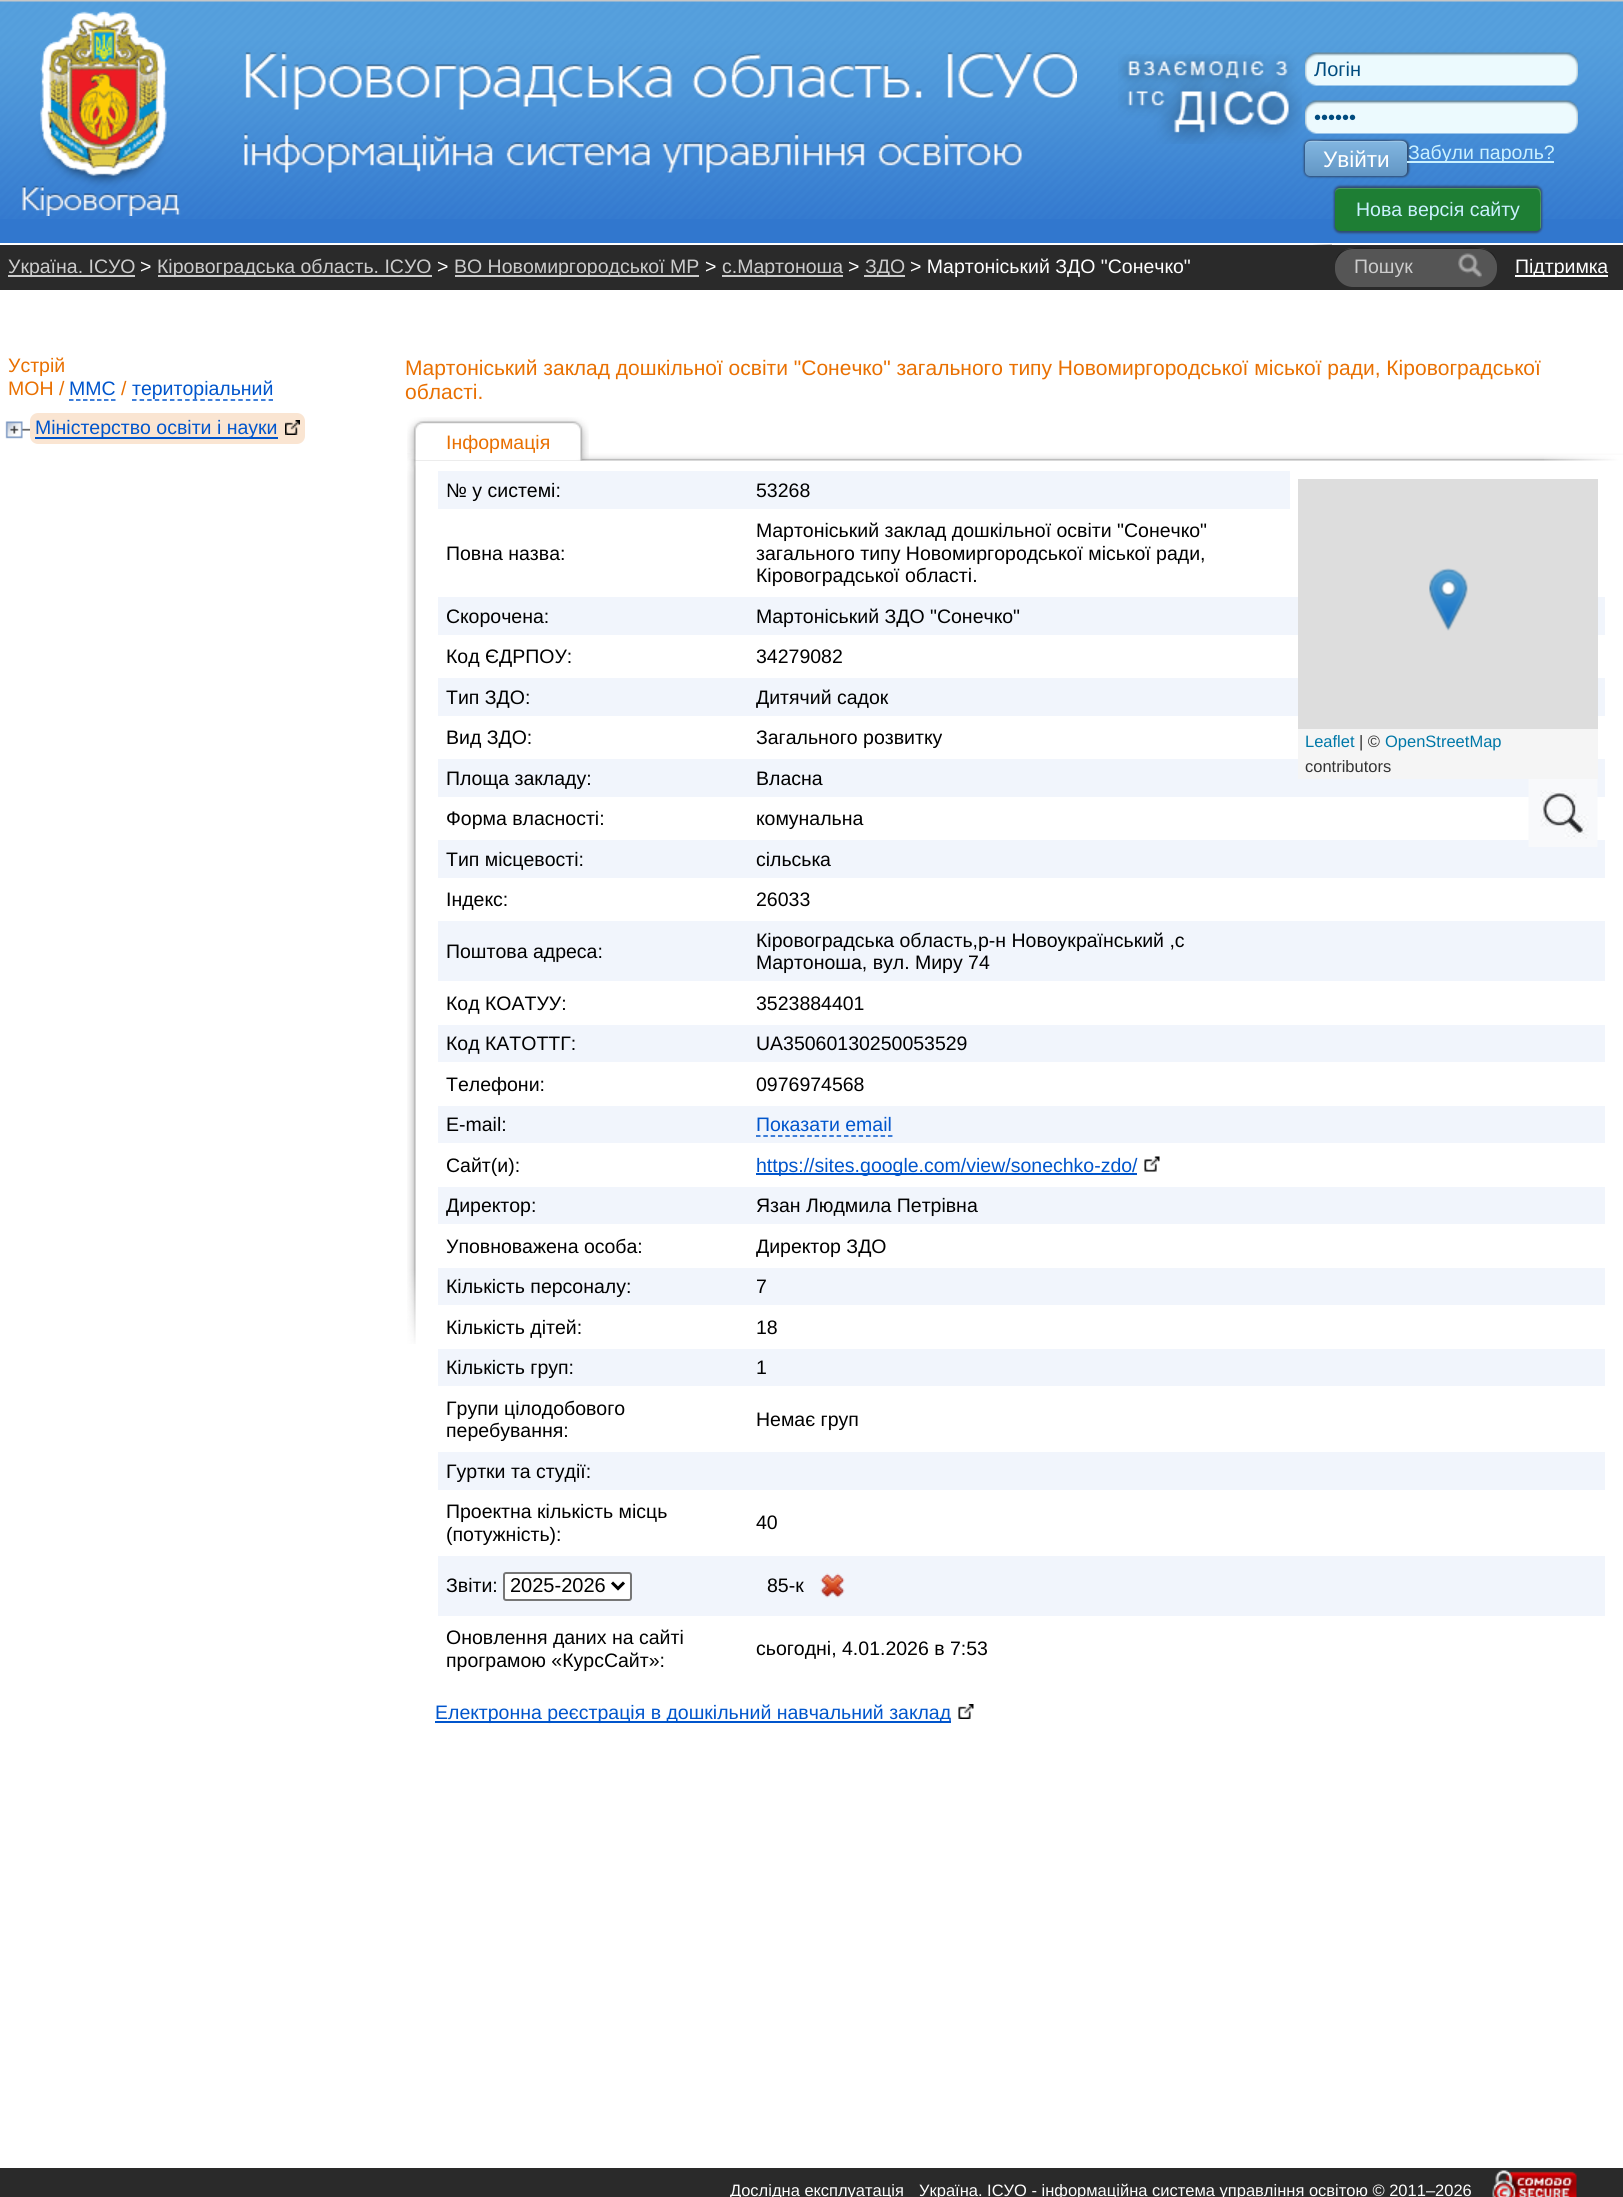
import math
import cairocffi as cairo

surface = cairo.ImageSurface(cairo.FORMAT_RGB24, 1623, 2197)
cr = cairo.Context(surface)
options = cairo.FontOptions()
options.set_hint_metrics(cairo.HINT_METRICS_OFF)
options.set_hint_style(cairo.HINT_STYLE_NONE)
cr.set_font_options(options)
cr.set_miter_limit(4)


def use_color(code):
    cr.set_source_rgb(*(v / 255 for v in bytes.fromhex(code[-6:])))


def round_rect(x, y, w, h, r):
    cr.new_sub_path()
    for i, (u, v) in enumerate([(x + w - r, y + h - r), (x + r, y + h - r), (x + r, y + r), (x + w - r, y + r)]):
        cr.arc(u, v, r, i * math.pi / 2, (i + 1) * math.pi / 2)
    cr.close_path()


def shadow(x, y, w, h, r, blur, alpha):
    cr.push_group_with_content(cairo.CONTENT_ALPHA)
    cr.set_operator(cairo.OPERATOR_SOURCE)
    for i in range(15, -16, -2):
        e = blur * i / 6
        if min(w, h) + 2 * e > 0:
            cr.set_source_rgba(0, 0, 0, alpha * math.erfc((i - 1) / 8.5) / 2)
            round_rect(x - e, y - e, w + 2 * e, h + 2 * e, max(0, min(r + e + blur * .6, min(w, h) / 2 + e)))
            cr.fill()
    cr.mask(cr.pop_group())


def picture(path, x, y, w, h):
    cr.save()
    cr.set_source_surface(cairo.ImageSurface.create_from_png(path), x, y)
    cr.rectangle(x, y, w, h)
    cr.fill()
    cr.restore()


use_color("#ffffff")
cr.paint()
use_color("#3177ce")
cr.rectangle(0, 219, 1623, 24)
cr.fill()
picture("img1.png", 0, 0, 1623, 219)
picture("img2.png", 22, 10, 1055, 206)
picture("img3.png", 1118, 54, 184, 90)
picture("img4.png", 1305, 52, 273, 34)
cr.select_font_face("Liberation Sans")
cr.set_font_size(20)
use_color("#014c7f")
cr.move_to(1314, 76)
cr.show_text("Логін")
picture("img5.png", 1305, 100, 273, 34)
cr.move_to(1314, 124)
cr.show_text("••••••")
use_color("#2f4666")
shadow(1304, 140, 105, 37, 6, 1, 0.9)
gradient = cairo.LinearGradient(1356, 176, 1356, 141)
gradient.add_color_stop_rgba(0, 0.384, 0.588, 0.769, 1)
gradient.add_color_stop_rgba(1, 0.51, 0.714, 0.882, 1)
cr.set_source(gradient)
round_rect(1305, 141, 102, 35, 5)
cr.fill()
cr.set_source_rgba(1, 1, 1, 0.2)
cr.new_path()
cr.move_to(1310, 142)
cr.line_to(1402, 142)
cr.curve_to(1405, 142, 1407, 145, 1407, 147)
cr.curve_to(1407, 137, 1392, 141, 1387, 141)
cr.line_to(1325, 141)
cr.curve_to(1320, 141, 1305, 137, 1305, 147)
cr.curve_to(1305, 145, 1307, 142, 1310, 142)
cr.close_path()
cr.fill()
cr.set_font_size(22.5)
use_color("#ffffff")
cr.move_to(1323, 167)
cr.show_text("Увійти")
use_color("#caf1ff")
cr.rectangle(1407, 161, 147, 2)
cr.fill()
cr.set_font_size(19.5)
cr.move_to(1408, 159)
cr.show_text("Забули пароль?")
use_color("#2f4666")
shadow(1334, 186, 208, 47, 6, 1, 0.9)
use_color("#1e7e34")
round_rect(1335, 188, 206, 43, 5)
cr.fill()
cr.set_source_rgba(1, 1, 1, 0.2)
cr.new_path()
cr.move_to(1340, 189)
cr.line_to(1536, 189)
cr.curve_to(1542, 189, 1540, 203, 1540, 205)
cr.line_to(1540, 229)
cr.curve_to(1541, 228, 1541, 227, 1541, 226)
cr.line_to(1541, 193)
cr.curve_to(1541, 190, 1539, 188, 1536, 188)
cr.line_to(1340, 188)
cr.curve_to(1337, 188, 1335, 190, 1335, 193)
cr.line_to(1335, 194)
cr.curve_to(1335, 191, 1337, 189, 1340, 189)
cr.close_path()
cr.fill()
use_color("#caf1ff")
cr.move_to(1356, 216)
cr.show_text("Нова версія сайту")
use_color("#2a2a2a")
cr.rectangle(0, 245, 1623, 45)
cr.fill()
picture("img6.png", 1313, 244, 19, 1)
use_color("#cccccc")
cr.rectangle(8, 275, 127, 2)
cr.fill()
cr.move_to(8, 273)
cr.show_text("Україна. ІСУО")
use_color("#ffffff")
cr.move_to(140, 273)
cr.show_text(">")
use_color("#cccccc")
cr.rectangle(158, 275, 274, 2)
cr.fill()
cr.move_to(157, 273)
cr.show_text("Кіровоградська область. ІСУО")
use_color("#ffffff")
cr.move_to(437, 273)
cr.show_text(">")
use_color("#cccccc")
cr.rectangle(455, 275, 244, 2)
cr.fill()
cr.move_to(454, 273)
cr.show_text("ВО Новомиргородської МР")
use_color("#ffffff")
cr.move_to(705, 273)
cr.show_text(">")
use_color("#cccccc")
cr.rectangle(722, 275, 121, 2)
cr.fill()
cr.move_to(722, 273)
cr.show_text("с.Мартоноша")
use_color("#ffffff")
cr.move_to(848, 273)
cr.show_text(">")
use_color("#cccccc")
cr.rectangle(864, 275, 41, 2)
cr.fill()
cr.move_to(865, 273)
cr.show_text("ЗДО")
use_color("#ffffff")
cr.move_to(910, 273)
cr.show_text("> Мартоніський ЗДО \"Сонечко\"")
use_color("#555555")
round_rect(1335, 248, 162, 39, 18)
cr.fill()
cr.set_source_rgba(0, 0, 0, 0.3)
cr.new_path()
cr.move_to(1353, 249)
cr.line_to(1479, 249)
cr.curve_to(1489, 249, 1497, 257, 1497, 267)
cr.curve_to(1497, 244, 1474, 248, 1458, 248)
cr.line_to(1374, 248)
cr.curve_to(1358, 248, 1335, 244, 1335, 267)
cr.curve_to(1335, 257, 1343, 249, 1353, 249)
cr.close_path()
cr.fill()
cr.set_source_rgba(0, 0, 0, 0.4)
cr.new_path()
cr.move_to(1353, 249)
cr.line_to(1479, 249)
cr.curve_to(1489, 249, 1497, 257, 1497, 267)
cr.curve_to(1497, 244, 1474, 248, 1458, 248)
cr.line_to(1374, 248)
cr.curve_to(1358, 248, 1335, 244, 1335, 267)
cr.curve_to(1335, 257, 1343, 249, 1353, 249)
cr.close_path()
cr.fill()
use_color("#cccccc")
cr.move_to(1354, 273)
cr.show_text("Пошук")
picture("img7.png", 1458, 253, 24, 25)
use_color("#ffffff")
cr.rectangle(1515, 275, 93, 2)
cr.fill()
cr.move_to(1515, 273)
cr.show_text("Підтримка")
use_color("#e97001")
cr.move_to(8, 372)
cr.show_text("Устрій")
cr.move_to(8, 395)
cr.show_text("МОН /")
use_color("#0055cc")
cr.move_to(69, 395)
cr.show_text("ММС")
cr.new_path()
cr.move_to(69, 400)
cr.line_to(115.5, 400)
cr.set_line_width(1.5)
cr.set_dash([4.5, 2.5])
cr.stroke()
use_color("#e97001")
cr.move_to(121, 395)
cr.show_text("/")
cr.new_path()
cr.move_to(132, 400)
cr.line_to(273, 400)
use_color("#0055cc")
cr.set_dash([4.5, 3.09])
cr.stroke()
cr.move_to(132, 395)
cr.show_text("територіальний")
picture("img8.png", 5, 421, 25, 18)
use_color("#fae5d2")
round_rect(30, 413, 275, 31, 8)
cr.fill()
use_color("#0055cc")
cr.rectangle(35, 437, 243, 2)
cr.fill()
cr.move_to(35, 434)
cr.show_text("Міністерство освіти і науки")
picture("img9.png", 285, 420, 15, 15)
cr.set_font_size(21)
use_color("#e97001")
cr.move_to(405, 375)
cr.show_text("Мартоніський заклад дошкільної освіти \"Сонечко\" загального типу Новомиргородської міської ради, Кіровоградської")
cr.move_to(405, 399)
cr.show_text("області.")
picture("img11.png", 407, 453, 1216, 891)
picture("img10.png", 407, 417, 182, 44)
cr.set_font_size(19.5)
cr.move_to(446, 449)
cr.show_text("Інформація")
picture("img12.png", 1544, 455, 79, 6)
use_color("#f1f5fc")
cr.rectangle(438, 471, 852, 38)
cr.fill()
use_color("#000000")
cr.move_to(446, 497)
cr.show_text("№ у системі:")
cr.move_to(756, 497)
cr.show_text("53268")
use_color("#f1f5fc")
cr.rectangle(438, 597, 1167, 38)
cr.fill()
cr.rectangle(438, 678, 1167, 38)
cr.fill()
use_color("#dddddd")
cr.rectangle(1298, 479, 300, 250)
cr.fill()
picture("img13.png", 1429, 568, 39, 63)
use_color("#f1f5fc")
cr.rectangle(438, 759, 1167, 38)
cr.fill()
use_color("#f5f5f5")
cr.rectangle(1298, 729, 300, 50)
cr.fill()
cr.set_font_size(16.5)
use_color("#0078a8")
cr.move_to(1305, 747)
cr.show_text("Leaflet")
use_color("#333333")
cr.move_to(1359, 747)
cr.show_text("| ©")
use_color("#0078a8")
cr.move_to(1385, 747)
cr.show_text("OpenStreetMap")
use_color("#333333")
cr.move_to(1305, 772)
cr.show_text("contributors")
use_color("#f1f5fc")
cr.rectangle(438, 840, 1167, 38)
cr.fill()
picture("img14.png", 1528, 779, 70, 68)
cr.set_font_size(19.5)
use_color("#000000")
cr.move_to(446, 560)
cr.show_text("Повна назва:")
cr.move_to(756, 537)
cr.show_text("Мартоніський заклад дошкільної освіти \"Сонечко\"")
cr.move_to(756, 560)
cr.show_text("загального типу Новомиргородської міської ради,")
cr.move_to(756, 582)
cr.show_text("Кіровоградської області.")
cr.move_to(446, 623)
cr.show_text("Скорочена:")
cr.move_to(756, 623)
cr.show_text("Мартоніський ЗДО \"Сонечко\"")
cr.move_to(446, 663)
cr.show_text("Код ЄДРПОУ:")
cr.move_to(756, 663)
cr.show_text("34279082")
cr.move_to(446, 704)
cr.show_text("Тип ЗДО:")
cr.move_to(756, 704)
cr.show_text("Дитячий садок")
cr.move_to(446, 744)
cr.show_text("Вид ЗДО:")
cr.move_to(756, 744)
cr.show_text("Загального розвитку")
cr.move_to(446, 785)
cr.show_text("Площа закладу:")
cr.move_to(756, 785)
cr.show_text("Власна")
cr.move_to(446, 825)
cr.show_text("Форма власності:")
cr.move_to(756, 825)
cr.show_text("комунальна")
cr.move_to(446, 866)
cr.show_text("Тип місцевості:")
cr.move_to(756, 866)
cr.show_text("сільська")
cr.move_to(446, 906)
cr.show_text("Індекс:")
cr.move_to(756, 906)
cr.show_text("26033")
use_color("#f1f5fc")
cr.rectangle(438, 921, 1167, 60)
cr.fill()
use_color("#000000")
cr.move_to(446, 958)
cr.show_text("Поштова адреса:")
cr.move_to(756, 947)
cr.show_text("Кіровоградська область,р-н Новоукраїнський ,с")
cr.move_to(756, 969)
cr.show_text("Мартоноша, вул. Миру 74")
cr.move_to(446, 1010)
cr.show_text("Код КОАТУУ:")
cr.move_to(756, 1010)
cr.show_text("3523884401")
use_color("#f1f5fc")
cr.rectangle(438, 1025, 1167, 37)
cr.fill()
use_color("#000000")
cr.move_to(446, 1050)
cr.show_text("Код КАТОТТГ:")
cr.move_to(756, 1050)
cr.show_text("UA35060130250053529")
cr.move_to(446, 1091)
cr.show_text("Телефони:")
cr.move_to(756, 1091)
cr.show_text("0976974568")
use_color("#f1f5fc")
cr.rectangle(438, 1106, 1167, 37)
cr.fill()
use_color("#000000")
cr.move_to(446, 1131)
cr.show_text("E-mail:")
use_color("#0055cc")
cr.move_to(756, 1131)
cr.show_text("Показати email")
cr.new_path()
cr.move_to(756, 1136)
cr.line_to(892.5, 1136)
cr.set_dash([4.5, 2.83])
cr.stroke()
use_color("#000000")
cr.move_to(446, 1172)
cr.show_text("Сайт(и):")
use_color("#0055cc")
cr.rectangle(756, 1173, 381, 2)
cr.fill()
cr.move_to(756, 1172)
cr.show_text("https://sites.google.com/view/sonechko-zdo/")
picture("img15.png", 1144, 1156, 16, 16)
use_color("#f1f5fc")
cr.rectangle(438, 1187, 1167, 37)
cr.fill()
use_color("#000000")
cr.move_to(446, 1212)
cr.show_text("Директор:")
cr.move_to(756, 1212)
cr.show_text("Язан Людмила Петрівна")
cr.move_to(446, 1253)
cr.show_text("Уповноважена особа:")
cr.move_to(756, 1253)
cr.show_text("Директор ЗДО")
use_color("#f1f5fc")
cr.rectangle(438, 1268, 1167, 37)
cr.fill()
use_color("#000000")
cr.move_to(446, 1293)
cr.show_text("Кількість персоналу:")
cr.move_to(756, 1293)
cr.show_text("7")
cr.move_to(446, 1334)
cr.show_text("Кількість дітей:")
cr.move_to(756, 1334)
cr.show_text("18")
use_color("#f1f5fc")
cr.rectangle(438, 1349, 1167, 37)
cr.fill()
use_color("#000000")
cr.move_to(446, 1374)
cr.show_text("Кількість груп:")
cr.move_to(756, 1374)
cr.show_text("1")
cr.move_to(446, 1415)
cr.show_text("Групи цілодобового")
cr.move_to(446, 1437)
cr.show_text("перебування:")
cr.move_to(756, 1426)
cr.show_text("Немає груп")
use_color("#f1f5fc")
cr.rectangle(438, 1452, 1167, 38)
cr.fill()
use_color("#000000")
cr.move_to(446, 1478)
cr.show_text("Гуртки та студії:")
cr.move_to(446, 1518)
cr.show_text("Проектна кількість місць")
cr.move_to(446, 1541)
cr.show_text("(потужність):")
cr.move_to(756, 1529)
cr.show_text("40")
use_color("#f1f5fc")
cr.rectangle(438, 1556, 1167, 60)
cr.fill()
use_color("#000000")
cr.move_to(446, 1592)
cr.show_text("Звіти:")
use_color("#ffffff")
round_rect(504, 1573, 127, 27, 2)
cr.fill_preserve()
use_color("#767676")
cr.set_line_width(2)
cr.set_dash([])
cr.stroke()
cr.new_path()
cr.move_to(612, 1582.5)
cr.line_to(618, 1588.5)
cr.line_to(624, 1582.5)
use_color("#000000")
cr.set_line_width(3)
cr.stroke()
cr.set_font_size(20)
cr.move_to(510, 1592)
cr.show_text("2025-2026")
cr.set_font_size(19.5)
cr.move_to(767, 1592)
cr.show_text("85-к")
picture("img16.png", 820, 1573, 25, 25)
cr.move_to(446, 1644)
cr.show_text("Оновлення даних на сайті")
cr.move_to(446, 1667)
cr.show_text("програмою «КурсСайт»:")
cr.move_to(756, 1655)
cr.show_text("сьогодні, 4.01.2026 в 7:53")
use_color("#0055cc")
cr.rectangle(435, 1721, 516, 2)
cr.fill()
cr.move_to(435, 1719)
cr.show_text("Електронна реєстрація в дошкільний навчальний заклад")
picture("img17.png", 958, 1704, 16, 15)
use_color("#2a2a2a")
cr.rectangle(0, 2168, 1623, 29)
cr.fill()
cr.set_font_size(16.5)
use_color("#ffffff")
cr.move_to(730, 2196)
cr.show_text("Дослідна експлуатація")
cr.move_to(919, 2196)
cr.show_text("Україна. ІСУО - інформаційна система управління освітою © 2011–2026")
picture("img18.png", 1492, 2170, 85, 27)
surface.write_to_png("result.png")
